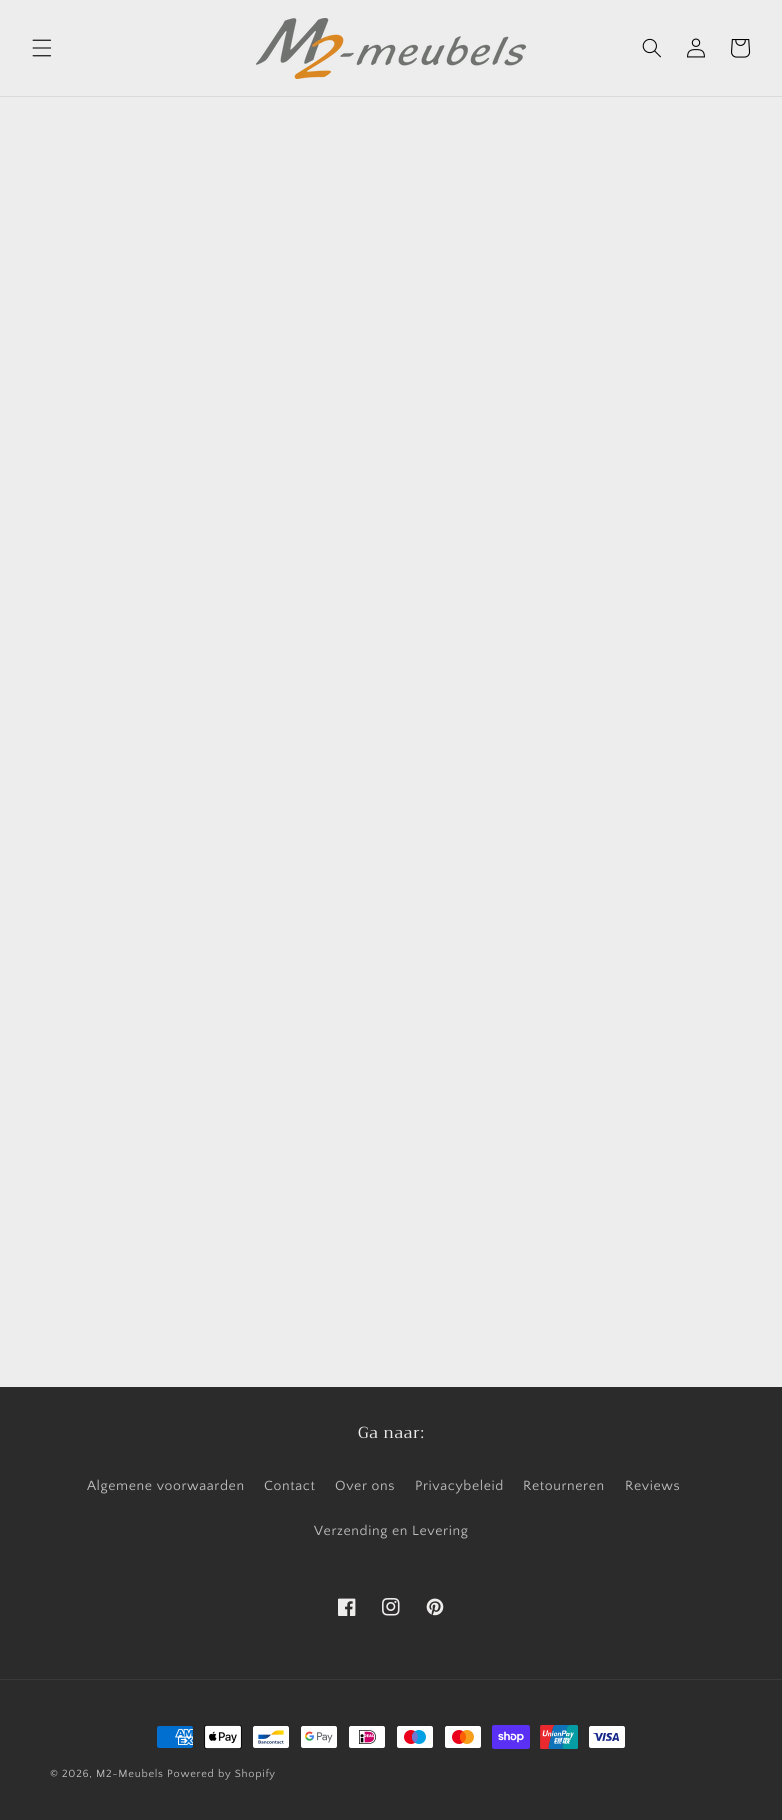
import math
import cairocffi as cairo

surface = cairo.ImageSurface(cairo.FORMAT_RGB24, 782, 1820)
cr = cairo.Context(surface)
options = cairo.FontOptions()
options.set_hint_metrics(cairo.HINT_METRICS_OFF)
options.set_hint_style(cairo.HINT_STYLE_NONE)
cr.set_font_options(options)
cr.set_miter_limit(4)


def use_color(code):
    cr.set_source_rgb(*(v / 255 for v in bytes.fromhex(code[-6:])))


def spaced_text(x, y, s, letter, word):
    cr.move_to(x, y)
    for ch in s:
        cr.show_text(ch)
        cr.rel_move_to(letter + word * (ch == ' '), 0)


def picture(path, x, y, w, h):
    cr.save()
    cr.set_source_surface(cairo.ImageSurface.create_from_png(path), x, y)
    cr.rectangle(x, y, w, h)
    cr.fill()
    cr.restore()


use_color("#ededed")
cr.paint()
use_color("#dadada")
cr.rectangle(0, 96, 782, 1)
cr.fill()
picture("img1.png", 32, 39, 20, 18)
picture("img2.png", 256, 18, 270, 61)
picture("img3.png", 642, 38, 19, 20)
picture("img4.png", 687, 38, 18, 20)
picture("img5.png", 731, 39, 20, 19)
use_color("#2b2b2b")
cr.rectangle(0, 1387, 782, 433)
cr.fill()
cr.select_font_face("Trirong")
cr.set_font_size(16)
use_color("#efecec")
spaced_text(358, 1438, "Ga naar:", 0.6, 0)
cr.select_font_face("Quattrocento Sans")
cr.set_font_size(14)
use_color("#bebcbc")
spaced_text(87, 1490, "Algemene voorwaarden", 0.6, 0)
spaced_text(264, 1490, "Contact", 0.6, 0)
spaced_text(335, 1490, "Over ons", 0.6, 0)
spaced_text(415, 1490, "Privacybeleid", 0.6, 0)
spaced_text(523, 1490, "Retourneren", 0.6, 0)
spaced_text(625, 1490, "Reviews", 0.6, 0)
spaced_text(314, 1535, "Verzending en Levering", 0.6, 0)
picture("img6.png", 338, 1598, 18, 18)
picture("img7.png", 382, 1598, 18, 18)
picture("img8.png", 426, 1598, 18, 18)
use_color("#3b3a3a")
cr.rectangle(0, 1679, 782, 1)
cr.fill()
picture("img9.png", 157, 1726, 36, 22)
picture("img10.png", 204, 1725, 38, 24)
picture("img11.png", 253, 1726, 36, 22)
picture("img12.png", 301, 1726, 36, 22)
picture("img13.png", 349, 1726, 36, 22)
picture("img14.png", 397, 1726, 36, 22)
picture("img15.png", 445, 1726, 36, 22)
picture("img16.png", 492, 1725, 38, 24)
picture("img17.png", 540, 1725, 38, 24)
picture("img18.png", 589, 1726, 36, 22)
cr.set_font_size(11)
use_color("#bebcbc")
spaced_text(50, 1777, "© 2026, M2-Meubels Powered by Shopify", 0.7, 0)
surface.write_to_png("result.png")
